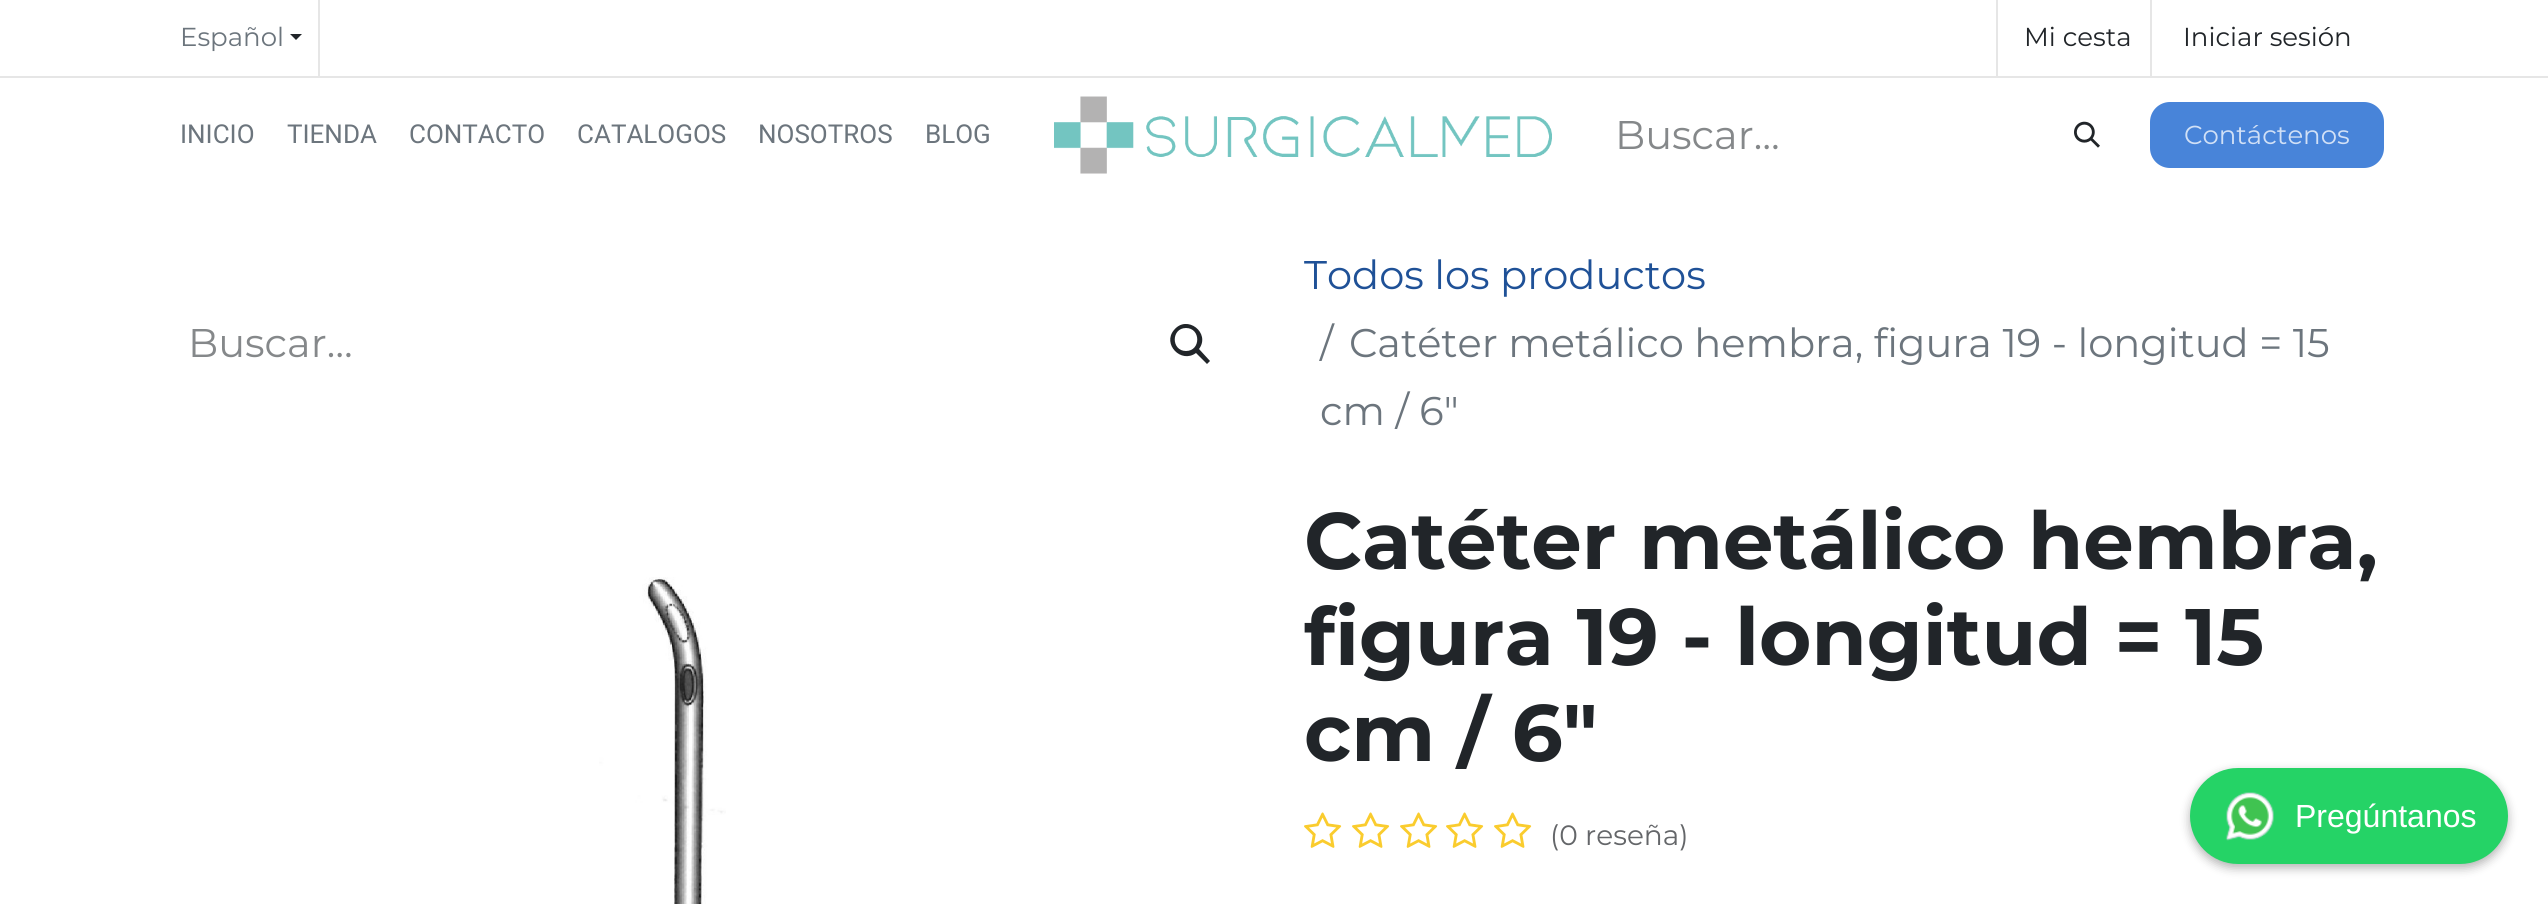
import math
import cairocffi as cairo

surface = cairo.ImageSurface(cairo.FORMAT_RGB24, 2548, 904)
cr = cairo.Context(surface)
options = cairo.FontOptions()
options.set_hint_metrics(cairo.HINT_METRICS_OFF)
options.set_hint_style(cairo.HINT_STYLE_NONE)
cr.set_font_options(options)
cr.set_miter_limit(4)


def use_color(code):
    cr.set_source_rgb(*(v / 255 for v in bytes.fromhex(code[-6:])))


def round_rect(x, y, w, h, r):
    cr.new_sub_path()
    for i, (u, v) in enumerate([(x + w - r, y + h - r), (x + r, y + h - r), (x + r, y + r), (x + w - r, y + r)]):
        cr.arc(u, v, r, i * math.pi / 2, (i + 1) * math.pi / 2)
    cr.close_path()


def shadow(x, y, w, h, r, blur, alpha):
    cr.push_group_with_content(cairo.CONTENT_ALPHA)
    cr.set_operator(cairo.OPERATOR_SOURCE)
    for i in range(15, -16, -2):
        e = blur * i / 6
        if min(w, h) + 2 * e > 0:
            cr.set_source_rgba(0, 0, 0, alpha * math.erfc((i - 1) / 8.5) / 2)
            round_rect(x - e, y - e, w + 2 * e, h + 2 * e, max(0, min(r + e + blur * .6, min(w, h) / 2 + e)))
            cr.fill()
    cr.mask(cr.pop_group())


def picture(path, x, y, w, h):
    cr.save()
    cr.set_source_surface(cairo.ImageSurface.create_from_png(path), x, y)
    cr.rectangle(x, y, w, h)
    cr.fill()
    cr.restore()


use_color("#ffffff")
cr.paint()
use_color("#e6e6e6")
cr.rectangle(0, 76, 2548, 2)
cr.fill()
cr.rectangle(318, 0, 2, 76)
cr.fill()
cr.select_font_face("Montserrat")
cr.set_font_size(26)
use_color("#6c757d")
cr.move_to(180, 46)
cr.show_text("Español")
use_color("#212529")
cr.new_path()
cr.move_to(290, 34)
cr.line_to(302, 34)
cr.line_to(296, 40)
cr.close_path()
cr.fill()
use_color("#e6e6e6")
cr.rectangle(1996, 0, 2, 76)
cr.fill()
use_color("#212529")
cr.move_to(2024, 46)
cr.show_text("Mi cesta")
use_color("#e6e6e6")
cr.rectangle(2150, 0, 2, 76)
cr.fill()
use_color("#212529")
cr.move_to(2183, 46)
cr.show_text("Iniciar sesión")
cr.select_font_face("Roboto")
use_color("#6c757d")
cr.move_to(180, 143)
cr.show_text("INICIO")
cr.move_to(287, 143)
cr.show_text("TIENDA")
cr.move_to(409, 143)
cr.show_text("CONTACTO")
cr.move_to(577, 143)
cr.show_text("CATALOGOS")
cr.move_to(758, 143)
cr.show_text("NOSOTROS")
cr.move_to(925, 143)
cr.show_text("BLOG")
picture("img1.png", 1054, 96, 498, 78)
cr.select_font_face("Montserrat")
cr.set_font_size(40)
use_color("#85888a")
cr.move_to(1615, 149)
cr.show_text("Buscar…")
picture("img2.png", 2074, 121, 26, 27)
use_color("#4884d9")
round_rect(2151, 103, 232, 64, 19)
cr.fill_preserve()
cr.stroke()
cr.set_font_size(26)
use_color("#d1e0f6")
cr.move_to(2184, 144)
cr.show_text("Contáctenos")
cr.set_font_size(40)
use_color("#85888a")
cr.move_to(188, 357)
cr.show_text("Buscar…")
use_color("#212529")
cr.new_path()
cr.move_to(1174, 330)
cr.curve_to(1187, 314, 1211, 333, 1199, 349)
cr.line_to(1210, 361)
cr.line_to(1207, 364)
cr.line_to(1196, 353)
cr.curve_to(1181, 364, 1162, 344, 1174, 330)
cr.close_path()
cr.move_to(1186, 328)
cr.curve_to(1171, 328, 1171, 351, 1186, 351)
cr.curve_to(1201, 351, 1201, 328, 1186, 328)
cr.close_path()
cr.fill()
use_color("#1f5197")
cr.move_to(1304, 289)
cr.show_text("Todos los productos")
use_color("#6c757d")
cr.move_to(1320, 357)
cr.show_text("/")
cr.move_to(1349, 357)
cr.show_text("Catéter metálico hembra, figura 19 - longitud = 15")
cr.move_to(1320, 425)
cr.show_text("cm / 6\"")
picture("img3.png", 599, 577, 127, 327)
cr.select_font_face("Montserrat", cairo.FONT_SLANT_NORMAL, cairo.FONT_WEIGHT_BOLD)
cr.set_font_size(80)
use_color("#212529")
cr.move_to(1304, 569)
cr.show_text("Catéter metálico hembra,")
cr.move_to(1304, 665)
cr.show_text("figura 19 - longitud = 15")
cr.move_to(1304, 761)
cr.show_text("cm / 6\"")
picture("img4.png", 1304, 812, 38, 36)
picture("img4.png", 1352, 812, 38, 36)
picture("img4.png", 1400, 812, 38, 36)
picture("img4.png", 1446, 812, 38, 36)
picture("img4.png", 1494, 812, 38, 36)
cr.select_font_face("Montserrat")
cr.set_font_size(28)
use_color("#646669")
cr.move_to(1550, 845)
cr.show_text("(0 reseña)")
use_color("#000000")
shadow(2190, 772, 318, 96, 48, 5, 0.3)
use_color("#25d366")
round_rect(2190, 768, 318, 96, 48)
cr.fill()
picture("img5.png", 2225, 792, 49, 49)
cr.select_font_face("Liberation Sans")
cr.set_font_size(32)
use_color("#ffffff")
cr.move_to(2295, 827)
cr.show_text("Pregúntanos")
surface.write_to_png("result.png")
